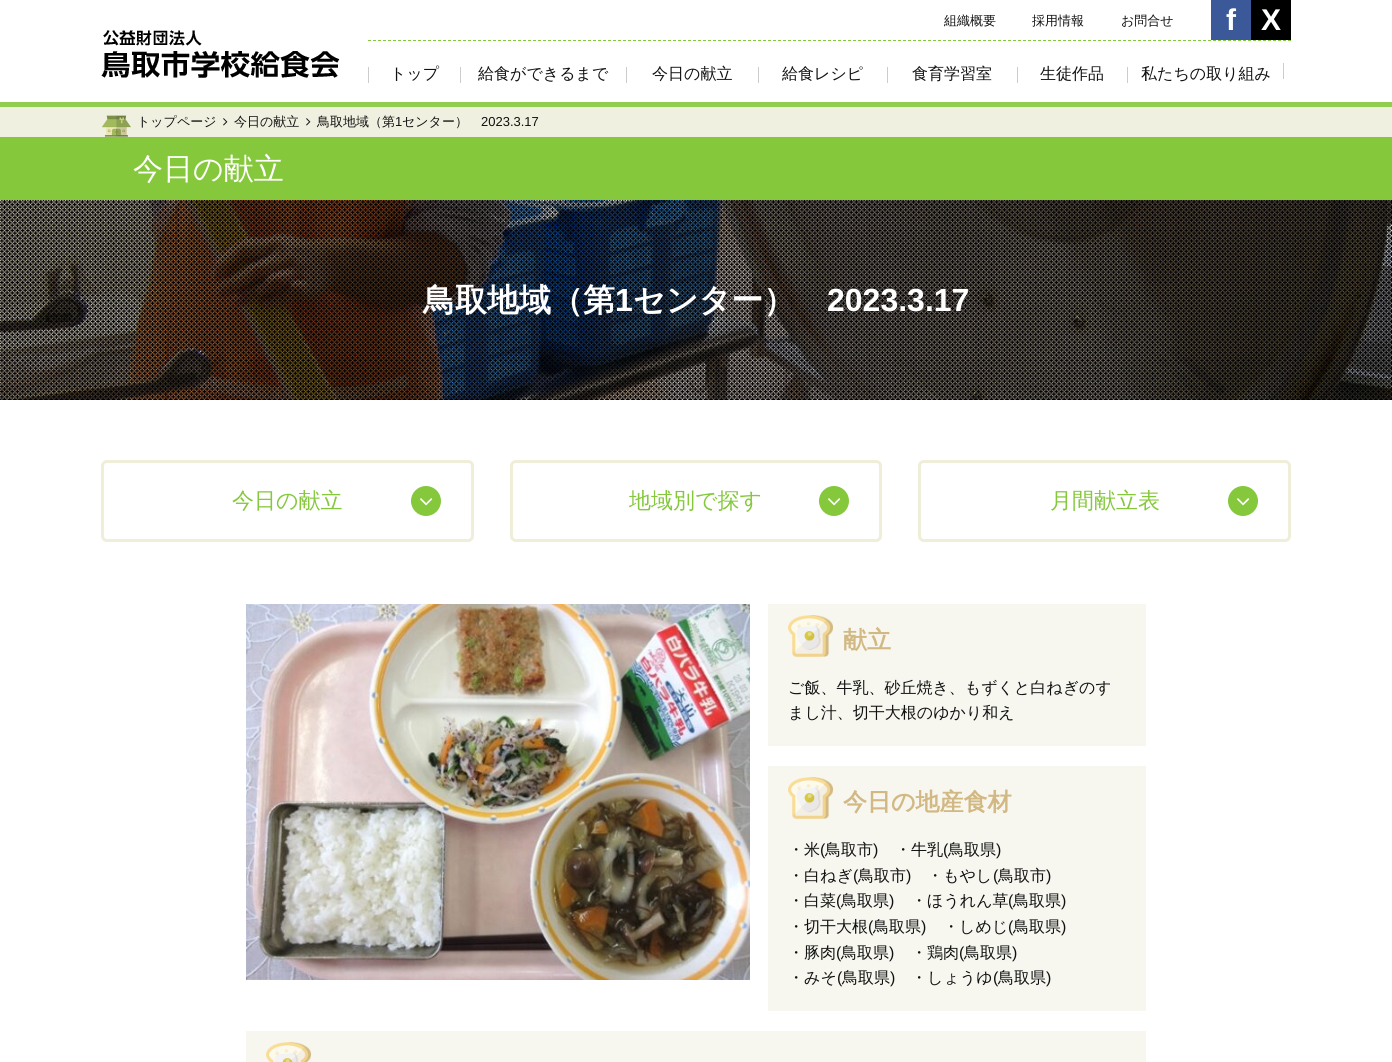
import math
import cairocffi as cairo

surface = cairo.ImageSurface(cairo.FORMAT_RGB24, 1392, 1062)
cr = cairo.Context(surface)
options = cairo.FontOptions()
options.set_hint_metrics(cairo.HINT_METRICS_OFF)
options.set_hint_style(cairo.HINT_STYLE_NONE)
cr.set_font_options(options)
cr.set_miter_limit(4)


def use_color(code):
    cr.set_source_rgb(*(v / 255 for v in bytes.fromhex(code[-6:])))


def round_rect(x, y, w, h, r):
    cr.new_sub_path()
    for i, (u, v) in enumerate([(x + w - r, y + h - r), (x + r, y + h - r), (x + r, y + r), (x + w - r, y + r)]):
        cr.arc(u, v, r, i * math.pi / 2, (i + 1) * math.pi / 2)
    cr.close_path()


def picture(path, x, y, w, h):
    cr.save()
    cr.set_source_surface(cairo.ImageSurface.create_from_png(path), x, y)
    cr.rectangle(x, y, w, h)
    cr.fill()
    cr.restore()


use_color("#ffffff")
cr.paint()
use_color("#91ce50")
cr.rectangle(0, 102, 1392, 5)
cr.fill()
picture("img1.png", 101, 30, 239, 48)
cr.new_path()
cr.move_to(368, 40.5)
cr.line_to(1291, 40.5)
use_color("#85c83c")
cr.set_line_width(1)
cr.set_dash([3, 2])
cr.stroke()
cr.select_font_face("WenQuanYi Zen Hei Medium")
cr.set_font_size(13)
use_color("#111111")
cr.move_to(944, 25)
cr.show_text("組織概要")
cr.move_to(1032, 25)
cr.show_text("採用情報")
cr.move_to(1121, 25)
cr.show_text("お問合せ")
use_color("#3b5998")
cr.rectangle(1211, 0, 40, 40)
cr.fill()
cr.select_font_face("Liberation Sans", cairo.FONT_SLANT_NORMAL, cairo.FONT_WEIGHT_BOLD)
cr.set_font_size(30)
use_color("#ffffff")
cr.move_to(1226, 30)
cr.show_text("f")
use_color("#000000")
cr.rectangle(1251, 0, 40, 40)
cr.fill()
use_color("#ffffff")
cr.move_to(1261, 30)
cr.show_text("X")
use_color("#cccccc")
cr.rectangle(368, 67, 1, 16)
cr.fill()
cr.select_font_face("WenQuanYi Zen Hei Medium")
cr.set_font_size(16)
use_color("#111111")
cr.move_to(390, 79)
cr.show_text("トップ")
use_color("#cccccc")
cr.rectangle(460, 67, 1, 16)
cr.fill()
use_color("#111111")
cr.move_to(478, 79)
cr.show_text("給食ができるまで")
use_color("#cccccc")
cr.rectangle(626, 67, 1, 16)
cr.fill()
use_color("#111111")
cr.move_to(652, 79)
cr.show_text("今日の献立")
use_color("#cccccc")
cr.rectangle(758, 67, 1, 16)
cr.fill()
use_color("#111111")
cr.move_to(782, 79)
cr.show_text("給食レシピ")
use_color("#cccccc")
cr.rectangle(887, 67, 1, 16)
cr.fill()
use_color("#111111")
cr.move_to(912, 79)
cr.show_text("食育学習室")
use_color("#cccccc")
cr.rectangle(1017, 67, 1, 16)
cr.fill()
use_color("#111111")
cr.move_to(1040, 79)
cr.show_text("生徒作品")
use_color("#cccccc")
cr.rectangle(1127, 67, 1, 16)
cr.fill()
use_color("#111111")
cr.move_to(1141, 79)
cr.show_text("私たちの取り組み")
use_color("#cccccc")
cr.rectangle(1283, 63, 1, 16)
cr.fill()
use_color("#f0f0e1")
cr.rectangle(0, 107, 1392, 30)
cr.fill()
picture("img2.png", 101, 115, 30, 22)
cr.set_font_size(13)
use_color("#111111")
cr.move_to(137, 126)
cr.show_text("トップページ")
picture("img3.png", 223, 118, 5, 8)
cr.move_to(234, 126)
cr.show_text("今日の献立")
picture("img3.png", 306, 118, 5, 8)
cr.move_to(317, 126)
cr.show_text("鳥取地域（第")
cr.select_font_face("Liberation Sans")
cr.move_to(395, 126)
cr.show_text("1")
cr.select_font_face("WenQuanYi Zen Hei Medium")
cr.move_to(402, 126)
cr.show_text("センター）")
cr.select_font_face("Liberation Sans")
cr.move_to(481, 126)
cr.show_text("2023.3.17")
use_color("#85c83c")
cr.rectangle(0, 137, 1392, 63)
cr.fill()
cr.select_font_face("WenQuanYi Zen Hei Medium")
cr.set_font_size(30)
use_color("#ffffff")
cr.move_to(133, 179)
cr.show_text("今日の献立")
picture("img4.png", 0, 200, 1392, 200)
cr.select_font_face("WenQuanYi Zen Hei", cairo.FONT_SLANT_NORMAL, cairo.FONT_WEIGHT_BOLD)
cr.set_font_size(32)
cr.move_to(423, 311)
cr.show_text("鳥取地域（第")
cr.select_font_face("Liberation Sans", cairo.FONT_SLANT_NORMAL, cairo.FONT_WEIGHT_BOLD)
cr.move_to(615, 311)
cr.show_text("1")
cr.select_font_face("WenQuanYi Zen Hei", cairo.FONT_SLANT_NORMAL, cairo.FONT_WEIGHT_BOLD)
cr.move_to(633, 311)
cr.show_text("センター）")
cr.select_font_face("Liberation Sans", cairo.FONT_SLANT_NORMAL, cairo.FONT_WEIGHT_BOLD)
cr.move_to(827, 311)
cr.show_text("2023.3.17")
round_rect(102.5, 461.5, 370, 79, 4.5)
use_color("#eeeed9")
cr.set_line_width(3)
cr.set_dash([])
cr.stroke()
cr.select_font_face("WenQuanYi Zen Hei Medium")
cr.set_font_size(22)
use_color("#85c83c")
cr.move_to(232, 508)
cr.show_text("今日の献立")
cr.new_path()
cr.arc(426, 501, 15, 0, 2 * math.pi)
cr.fill()
picture("img5.png", 420, 498, 13, 8)
round_rect(511.5, 461.5, 369, 79, 4.5)
use_color("#eeeed9")
cr.stroke()
use_color("#85c83c")
cr.move_to(629, 508)
cr.show_text("地域別で探す")
cr.new_path()
cr.arc(834, 501, 15, 0, 2 * math.pi)
cr.fill()
picture("img5.png", 828, 498, 13, 8)
round_rect(919.5, 461.5, 370, 79, 4.5)
use_color("#eeeed9")
cr.stroke()
use_color("#85c83c")
cr.move_to(1050, 508)
cr.show_text("月間献立表")
cr.new_path()
cr.arc(1243, 501, 15, 0, 2 * math.pi)
cr.fill()
picture("img5.png", 1237, 498, 13, 8)
picture("img6.png", 246, 604, 504, 376)
use_color("#f7f7f0")
cr.rectangle(768, 604, 378, 407)
cr.fill()
picture("img7.png", 788, 615, 45, 42)
cr.select_font_face("WenQuanYi Zen Hei", cairo.FONT_SLANT_NORMAL, cairo.FONT_WEIGHT_BOLD)
cr.set_font_size(24)
use_color("#d2b883")
cr.move_to(843, 648)
cr.show_text("献立")
cr.select_font_face("WenQuanYi Zen Hei Medium")
cr.set_font_size(16)
use_color("#111111")
cr.move_to(788, 693)
cr.show_text("ご飯、牛乳、砂丘焼き、もずくと白ねぎのす")
cr.move_to(788, 718)
cr.show_text("まし汁、切干大根のゆかり和え")
use_color("#ffffff")
cr.rectangle(768, 746, 378, 20)
cr.fill()
picture("img7.png", 788, 777, 45, 42)
cr.select_font_face("WenQuanYi Zen Hei", cairo.FONT_SLANT_NORMAL, cairo.FONT_WEIGHT_BOLD)
cr.set_font_size(24)
use_color("#d2b883")
cr.move_to(843, 810)
cr.show_text("今日の地産食材")
cr.select_font_face("WenQuanYi Zen Hei Medium")
cr.set_font_size(16)
use_color("#111111")
cr.move_to(788, 855)
cr.show_text("・米")
cr.select_font_face("Liberation Sans")
cr.move_to(820, 855)
cr.show_text("(")
cr.select_font_face("WenQuanYi Zen Hei Medium")
cr.move_to(825, 855)
cr.show_text("鳥取市")
cr.select_font_face("Liberation Sans")
cr.move_to(873, 855)
cr.show_text(")")
cr.select_font_face("WenQuanYi Zen Hei Medium")
cr.move_to(895, 855)
cr.show_text("・牛乳")
cr.select_font_face("Liberation Sans")
cr.move_to(943, 855)
cr.show_text("(")
cr.select_font_face("WenQuanYi Zen Hei Medium")
cr.move_to(948, 855)
cr.show_text("鳥取県")
cr.select_font_face("Liberation Sans")
cr.move_to(996, 855)
cr.show_text(")")
cr.select_font_face("WenQuanYi Zen Hei Medium")
cr.move_to(788, 881)
cr.show_text("・白ねぎ")
cr.select_font_face("Liberation Sans")
cr.move_to(853, 881)
cr.show_text("(")
cr.select_font_face("WenQuanYi Zen Hei Medium")
cr.move_to(858, 881)
cr.show_text("鳥取市")
cr.select_font_face("Liberation Sans")
cr.move_to(906, 881)
cr.show_text(")")
cr.select_font_face("WenQuanYi Zen Hei Medium")
cr.move_to(927, 881)
cr.show_text("・もやし")
cr.select_font_face("Liberation Sans")
cr.move_to(993, 881)
cr.show_text("(")
cr.select_font_face("WenQuanYi Zen Hei Medium")
cr.move_to(998, 881)
cr.show_text("鳥取市")
cr.select_font_face("Liberation Sans")
cr.move_to(1046, 881)
cr.show_text(")")
cr.select_font_face("WenQuanYi Zen Hei Medium")
cr.move_to(788, 906)
cr.show_text("・白菜")
cr.select_font_face("Liberation Sans")
cr.move_to(836, 906)
cr.show_text("(")
cr.select_font_face("WenQuanYi Zen Hei Medium")
cr.move_to(841, 906)
cr.show_text("鳥取県")
cr.select_font_face("Liberation Sans")
cr.move_to(889, 906)
cr.show_text(")")
cr.select_font_face("WenQuanYi Zen Hei Medium")
cr.move_to(911, 906)
cr.show_text("・ほうれん草")
cr.select_font_face("Liberation Sans")
cr.move_to(1008, 906)
cr.show_text("(")
cr.select_font_face("WenQuanYi Zen Hei Medium")
cr.move_to(1013, 906)
cr.show_text("鳥取県")
cr.select_font_face("Liberation Sans")
cr.move_to(1061, 906)
cr.show_text(")")
cr.select_font_face("WenQuanYi Zen Hei Medium")
cr.move_to(788, 932)
cr.show_text("・切干大根")
cr.select_font_face("Liberation Sans")
cr.move_to(868, 932)
cr.show_text("(")
cr.select_font_face("WenQuanYi Zen Hei Medium")
cr.move_to(873, 932)
cr.show_text("鳥取県")
cr.select_font_face("Liberation Sans")
cr.move_to(921, 932)
cr.show_text(")")
cr.select_font_face("WenQuanYi Zen Hei Medium")
cr.move_to(943, 932)
cr.show_text("・しめじ")
cr.select_font_face("Liberation Sans")
cr.move_to(1008, 932)
cr.show_text("(")
cr.select_font_face("WenQuanYi Zen Hei Medium")
cr.move_to(1013, 932)
cr.show_text("鳥取県")
cr.select_font_face("Liberation Sans")
cr.move_to(1061, 932)
cr.show_text(")")
cr.select_font_face("WenQuanYi Zen Hei Medium")
cr.move_to(788, 958)
cr.show_text("・豚肉")
cr.select_font_face("Liberation Sans")
cr.move_to(836, 958)
cr.show_text("(")
cr.select_font_face("WenQuanYi Zen Hei Medium")
cr.move_to(841, 958)
cr.show_text("鳥取県")
cr.select_font_face("Liberation Sans")
cr.move_to(889, 958)
cr.show_text(")")
cr.select_font_face("WenQuanYi Zen Hei Medium")
cr.move_to(911, 958)
cr.show_text("・鶏肉")
cr.select_font_face("Liberation Sans")
cr.move_to(959, 958)
cr.show_text("(")
cr.select_font_face("WenQuanYi Zen Hei Medium")
cr.move_to(964, 958)
cr.show_text("鳥取県")
cr.select_font_face("Liberation Sans")
cr.move_to(1012, 958)
cr.show_text(")")
cr.select_font_face("WenQuanYi Zen Hei Medium")
cr.move_to(788, 983)
cr.show_text("・みそ")
cr.select_font_face("Liberation Sans")
cr.move_to(837, 983)
cr.show_text("(")
cr.select_font_face("WenQuanYi Zen Hei Medium")
cr.move_to(842, 983)
cr.show_text("鳥取県")
cr.select_font_face("Liberation Sans")
cr.move_to(890, 983)
cr.show_text(")")
cr.select_font_face("WenQuanYi Zen Hei Medium")
cr.move_to(911, 983)
cr.show_text("・しょうゆ")
cr.select_font_face("Liberation Sans")
cr.move_to(993, 983)
cr.show_text("(")
cr.select_font_face("WenQuanYi Zen Hei Medium")
cr.move_to(998, 983)
cr.show_text("鳥取県")
cr.select_font_face("Liberation Sans")
cr.move_to(1046, 983)
cr.show_text(")")
use_color("#f7f7f0")
cr.rectangle(246, 1031, 900, 31)
cr.fill()
picture("img8.png", 266, 1042, 45, 20)
surface.write_to_png("result.png")
